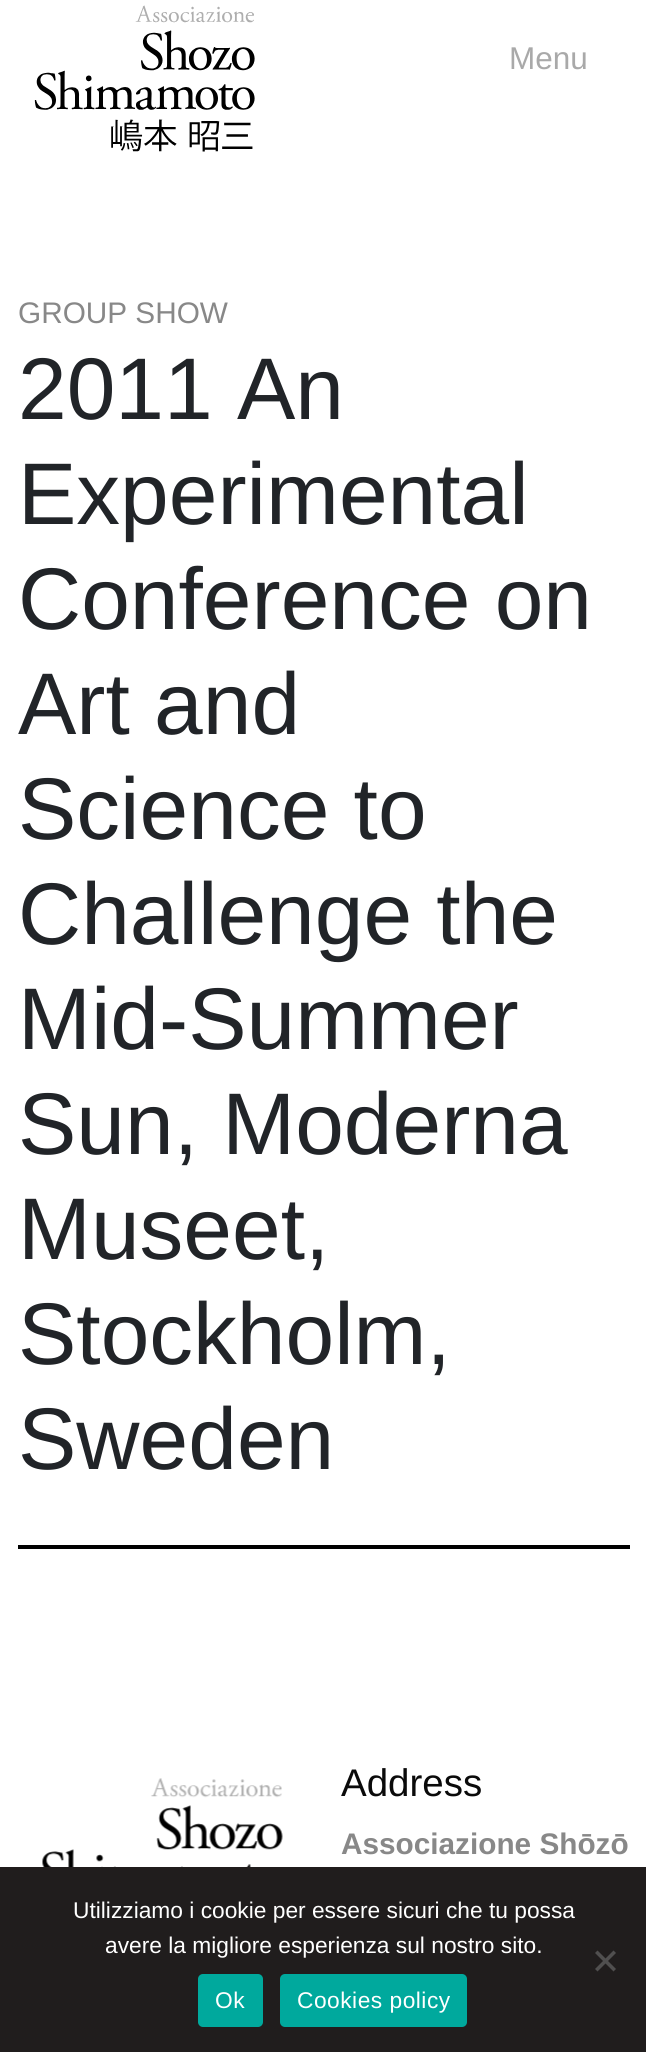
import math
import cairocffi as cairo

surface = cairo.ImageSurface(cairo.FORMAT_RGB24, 646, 2052)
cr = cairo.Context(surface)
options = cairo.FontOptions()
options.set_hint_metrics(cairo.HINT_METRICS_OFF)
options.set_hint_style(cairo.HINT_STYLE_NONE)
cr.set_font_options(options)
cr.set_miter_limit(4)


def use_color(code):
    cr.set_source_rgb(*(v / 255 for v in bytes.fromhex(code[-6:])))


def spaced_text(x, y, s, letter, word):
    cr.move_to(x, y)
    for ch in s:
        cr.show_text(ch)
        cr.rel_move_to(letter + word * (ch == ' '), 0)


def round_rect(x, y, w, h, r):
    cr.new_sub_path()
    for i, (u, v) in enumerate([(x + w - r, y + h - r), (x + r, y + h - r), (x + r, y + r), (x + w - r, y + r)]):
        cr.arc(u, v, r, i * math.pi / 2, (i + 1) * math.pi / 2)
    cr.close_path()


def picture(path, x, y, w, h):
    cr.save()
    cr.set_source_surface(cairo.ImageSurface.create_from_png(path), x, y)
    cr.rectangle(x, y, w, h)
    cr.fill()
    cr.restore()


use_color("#ffffff")
cr.paint()
picture("img1.png", 34, 5, 221, 147)
cr.select_font_face("Liberation Sans")
cr.set_font_size(31.5)
use_color("#a9a9a9")
cr.move_to(509, 69)
cr.show_text("Menu")
use_color("#000000")
cr.rectangle(18, 1545, 612, 4)
cr.fill()
cr.set_font_size(29.75)
use_color("#888888")
cr.move_to(18, 323)
cr.show_text("GROUP SHOW")
cr.set_font_size(87.5)
use_color("#212428")
cr.move_to(18, 419)
cr.show_text("2011 An")
cr.move_to(18, 524)
cr.show_text("Experimental")
cr.move_to(18, 629)
cr.show_text("Conference on")
cr.move_to(18, 734)
cr.show_text("Art and")
cr.move_to(18, 839)
cr.show_text("Science to")
cr.move_to(18, 944)
cr.show_text("Challenge the")
cr.move_to(18, 1049)
cr.show_text("Mid-Summer")
cr.move_to(18, 1154)
cr.show_text("Sun, Moderna")
cr.move_to(18, 1259)
cr.show_text("Museet,")
cr.move_to(18, 1364)
cr.show_text("Stockholm,")
cr.move_to(18, 1469)
cr.show_text("Sweden")
picture("img2.png", 42, 1778, 241, 89)
cr.set_font_size(38.5)
use_color("#0a0a0a")
cr.move_to(341, 1796)
cr.show_text("Address")
cr.select_font_face("Liberation Sans", cairo.FONT_SLANT_NORMAL, cairo.FONT_WEIGHT_BOLD)
cr.set_font_size(29.75)
use_color("#888888")
cr.move_to(341, 1854)
cr.show_text("Associazione Shōzō")
use_color("#201d1d")
cr.rectangle(0, 1867, 646, 185)
cr.fill()
cr.select_font_face("Liberation Sans")
cr.set_font_size(22.75)
use_color("#ffffff")
cr.move_to(73, 1918)
cr.show_text("Utilizziamo i cookie per essere sicuri che tu possa")
cr.move_to(105, 1953)
cr.show_text("avere la migliore esperienza sul nostro sito.")
use_color("#504f4f")
cr.new_path()
cr.move_to(613.5, 1950.5)
cr.line_to(616, 1953)
cr.line_to(597.5, 1971.5)
cr.line_to(595, 1969)
cr.close_path()
cr.fill()
cr.new_path()
cr.move_to(595, 1953)
cr.line_to(597.5, 1950.5)
cr.line_to(616, 1969)
cr.line_to(613.5, 1971.5)
cr.close_path()
cr.fill()
use_color("#00a99d")
round_rect(198, 1974, 65, 53, 5)
cr.fill()
use_color("#ffffff")
spaced_text(215, 2008, "Ok", 0.5, 0)
use_color("#00a99d")
round_rect(280, 1974, 187, 53, 5)
cr.fill()
use_color("#ffffff")
spaced_text(297, 2008, "Cookies policy", 0.5, 0)
surface.write_to_png("result.png")
